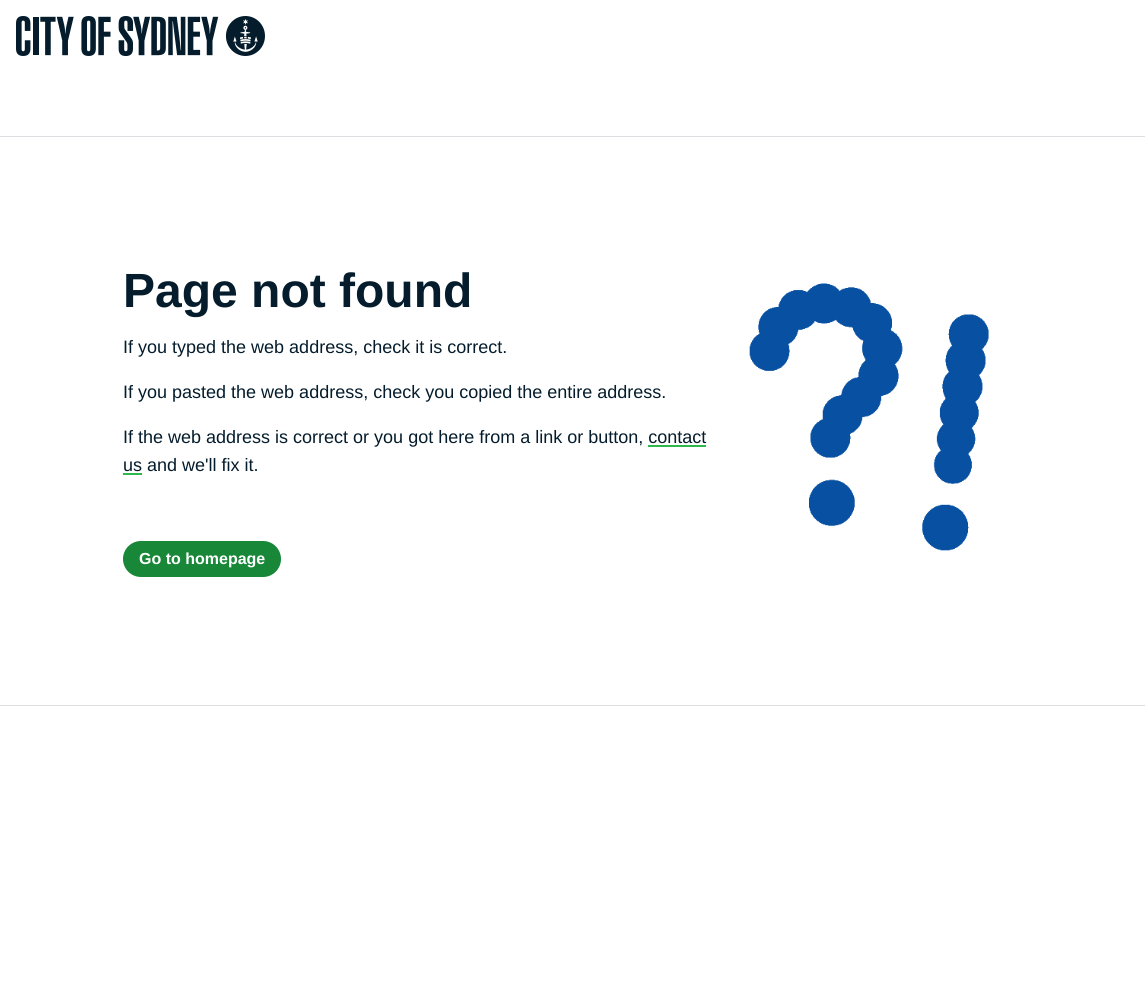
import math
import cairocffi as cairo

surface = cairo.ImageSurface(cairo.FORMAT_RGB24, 1145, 996)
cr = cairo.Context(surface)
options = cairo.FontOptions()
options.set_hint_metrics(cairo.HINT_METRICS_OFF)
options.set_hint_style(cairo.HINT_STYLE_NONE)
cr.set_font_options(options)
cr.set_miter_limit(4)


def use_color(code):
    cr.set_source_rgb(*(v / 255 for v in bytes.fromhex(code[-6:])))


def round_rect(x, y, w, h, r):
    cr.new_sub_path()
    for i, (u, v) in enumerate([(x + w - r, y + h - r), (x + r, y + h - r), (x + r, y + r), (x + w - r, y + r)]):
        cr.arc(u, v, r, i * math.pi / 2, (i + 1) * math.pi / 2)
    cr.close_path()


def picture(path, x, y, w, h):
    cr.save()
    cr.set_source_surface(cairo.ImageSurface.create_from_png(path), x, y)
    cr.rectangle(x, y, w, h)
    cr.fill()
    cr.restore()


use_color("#ffffff")
cr.paint()
picture("img1.png", 16, 16, 249, 40)
use_color("#dddee1")
cr.rectangle(0, 136, 1145, 1)
cr.fill()
cr.select_font_face("Liberation Sans", cairo.FONT_SLANT_NORMAL, cairo.FONT_WEIGHT_BOLD)
cr.set_font_size(48)
use_color("#041c2c")
cr.move_to(123, 307)
cr.show_text("Page not found")
cr.select_font_face("Liberation Sans")
cr.set_font_size(18)
cr.move_to(123, 353)
cr.show_text("If you typed the web address, check it is correct.")
cr.move_to(123, 398)
cr.show_text("If you pasted the web address, check you copied the entire address.")
cr.move_to(123, 443)
cr.show_text("If the web address is correct or you got here from a link or button, contact")
cr.move_to(123, 471)
cr.show_text("us")
use_color("#2db84b")
cr.rectangle(648, 445, 58, 2)
cr.fill()
cr.rectangle(123, 473, 19, 2)
cr.fill()
use_color("#041c2c")
cr.move_to(147, 471)
cr.show_text("and we'll fix it.")
use_color("#188838")
round_rect(124, 542, 156, 34, 17)
cr.fill_preserve()
cr.stroke()
cr.select_font_face("Liberation Sans", cairo.FONT_SLANT_NORMAL, cairo.FONT_WEIGHT_BOLD)
cr.set_font_size(16)
use_color("#ffffff")
cr.move_to(139, 564)
cr.show_text("Go to homepage")
picture("img2.png", 749, 283, 240, 268)
use_color("#dddee1")
cr.rectangle(0, 705, 1145, 1)
cr.fill()
surface.write_to_png("result.png")
